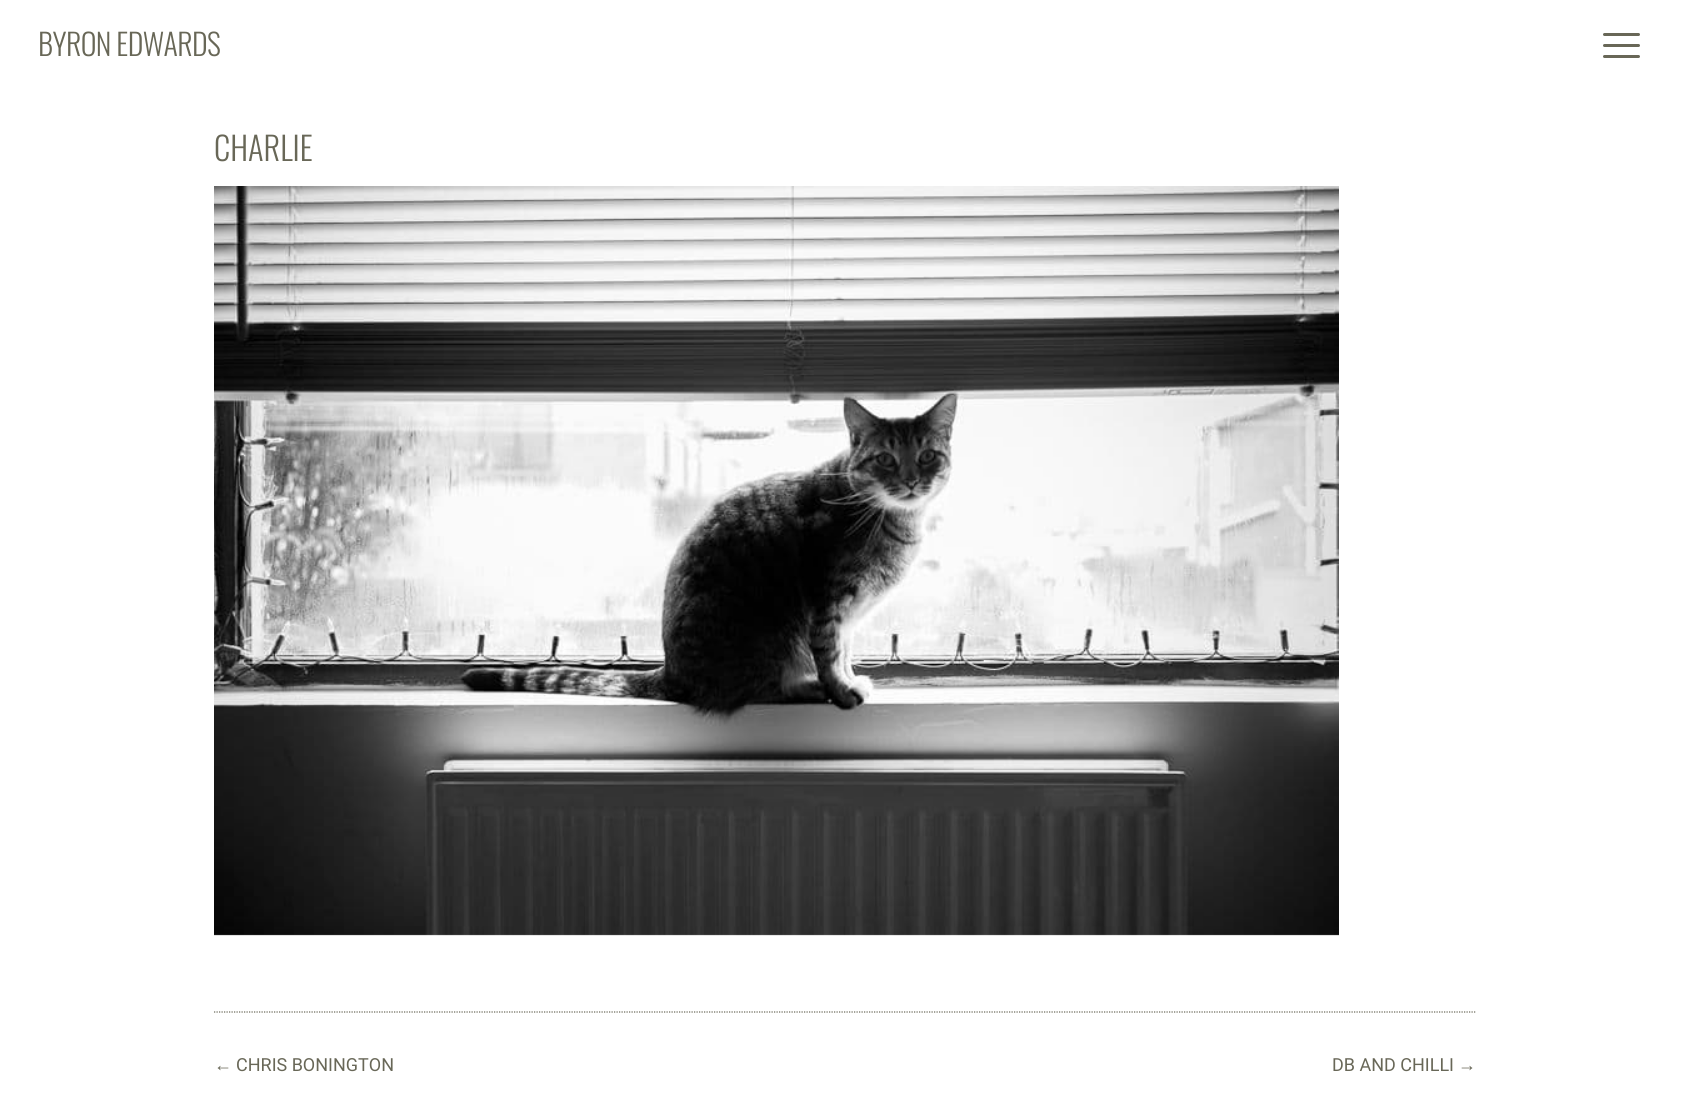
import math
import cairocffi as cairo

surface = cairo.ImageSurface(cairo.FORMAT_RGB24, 1690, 1110)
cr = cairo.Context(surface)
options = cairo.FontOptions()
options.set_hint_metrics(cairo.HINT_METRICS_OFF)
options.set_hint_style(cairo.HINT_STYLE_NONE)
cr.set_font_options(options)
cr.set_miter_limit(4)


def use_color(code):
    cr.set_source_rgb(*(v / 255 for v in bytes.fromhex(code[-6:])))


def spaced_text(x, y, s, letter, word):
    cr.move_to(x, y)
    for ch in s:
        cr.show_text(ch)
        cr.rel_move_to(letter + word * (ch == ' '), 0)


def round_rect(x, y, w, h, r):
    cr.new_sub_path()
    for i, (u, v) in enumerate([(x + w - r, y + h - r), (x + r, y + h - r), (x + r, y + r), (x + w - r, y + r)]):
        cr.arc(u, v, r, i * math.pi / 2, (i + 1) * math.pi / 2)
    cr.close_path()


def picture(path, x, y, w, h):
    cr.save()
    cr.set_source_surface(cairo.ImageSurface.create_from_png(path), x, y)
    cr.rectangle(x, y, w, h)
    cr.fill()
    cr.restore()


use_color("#ffffff")
cr.paint()
cr.select_font_face("Oswald Light")
cr.set_font_size(30)
use_color("#686757")
spaced_text(38, 56, "BYRON EDWARDS", -0.6, 0)
cr.set_font_size(32.5)
cr.move_to(214, 161)
cr.show_text("CHARLIE")
picture("img1.png", 214, 186, 1125, 750)
cr.new_path()
cr.move_to(214, 1012)
cr.line_to(1476, 1012)
cr.set_line_width(1.2)
cr.set_dash([1.25, 1.25])
cr.stroke()
cr.select_font_face("Liberation Sans")
cr.set_font_size(18)
cr.move_to(214, 1071)
cr.show_text("←")
cr.select_font_face("Roboto")
cr.move_to(236, 1071)
cr.show_text("CHRIS BONINGTON")
cr.move_to(1332, 1071)
cr.show_text("DB AND CHILLI")
cr.select_font_face("Liberation Sans")
cr.move_to(1458, 1071)
cr.show_text("→")
round_rect(1603, 44, 37, 3, 1.5)
cr.fill()
round_rect(1603, 33, 37, 3, 1.5)
cr.fill()
round_rect(1603, 55, 37, 3, 1.5)
cr.fill()
surface.write_to_png("result.png")
